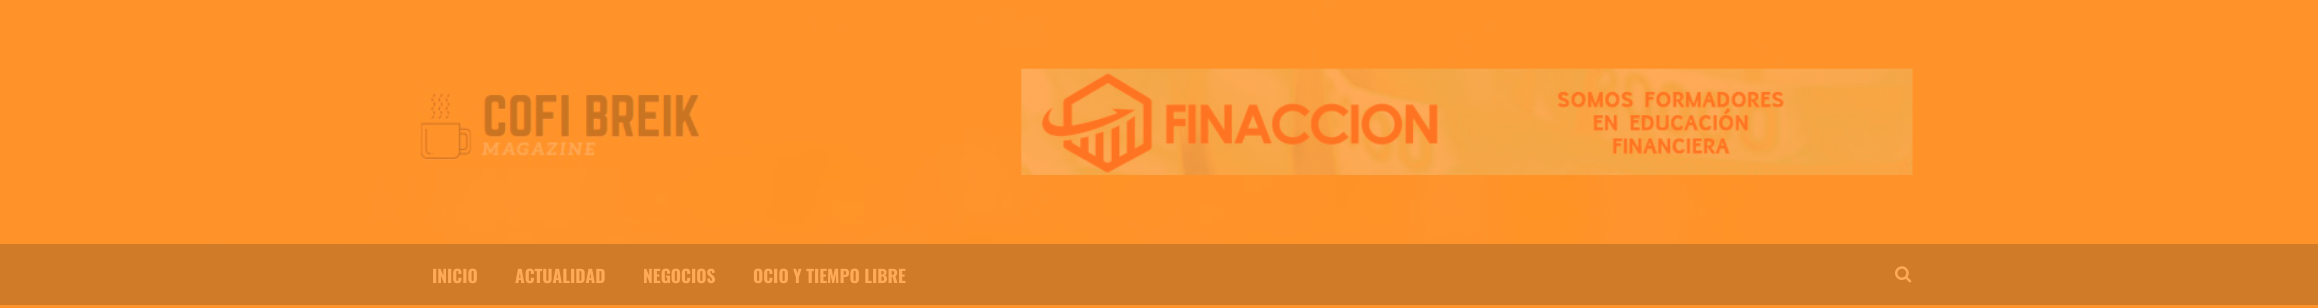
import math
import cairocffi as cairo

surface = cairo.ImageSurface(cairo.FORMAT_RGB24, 2318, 308)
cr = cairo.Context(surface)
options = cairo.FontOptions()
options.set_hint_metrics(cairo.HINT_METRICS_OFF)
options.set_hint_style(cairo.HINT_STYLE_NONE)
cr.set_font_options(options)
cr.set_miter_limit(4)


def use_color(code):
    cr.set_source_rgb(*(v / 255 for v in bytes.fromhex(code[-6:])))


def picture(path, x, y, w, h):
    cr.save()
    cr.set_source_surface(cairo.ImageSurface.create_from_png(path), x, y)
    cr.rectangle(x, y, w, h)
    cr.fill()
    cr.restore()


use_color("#ff932a")
cr.paint()
picture("img1.png", 0, 0, 2318, 244)
picture("img2.png", 416, 78, 294, 90)
picture("img3.png", 1021, 68, 892, 107)
use_color("#d07b28")
cr.rectangle(0, 244, 2318, 61)
cr.fill()
cr.select_font_face("Oswald", cairo.FONT_SLANT_NORMAL, cairo.FONT_WEIGHT_BOLD)
cr.set_font_size(17.5)
use_color("#ffaa57")
cr.move_to(432, 283)
cr.show_text("INICIO")
cr.move_to(515, 283)
cr.show_text("ACTUALIDAD")
cr.move_to(643, 283)
cr.show_text("NEGOCIOS")
cr.move_to(753, 283)
cr.show_text("OCIO Y TIEMPO LIBRE")
picture("img4.png", 1895, 266, 17, 17)
surface.write_to_png("result.png")
